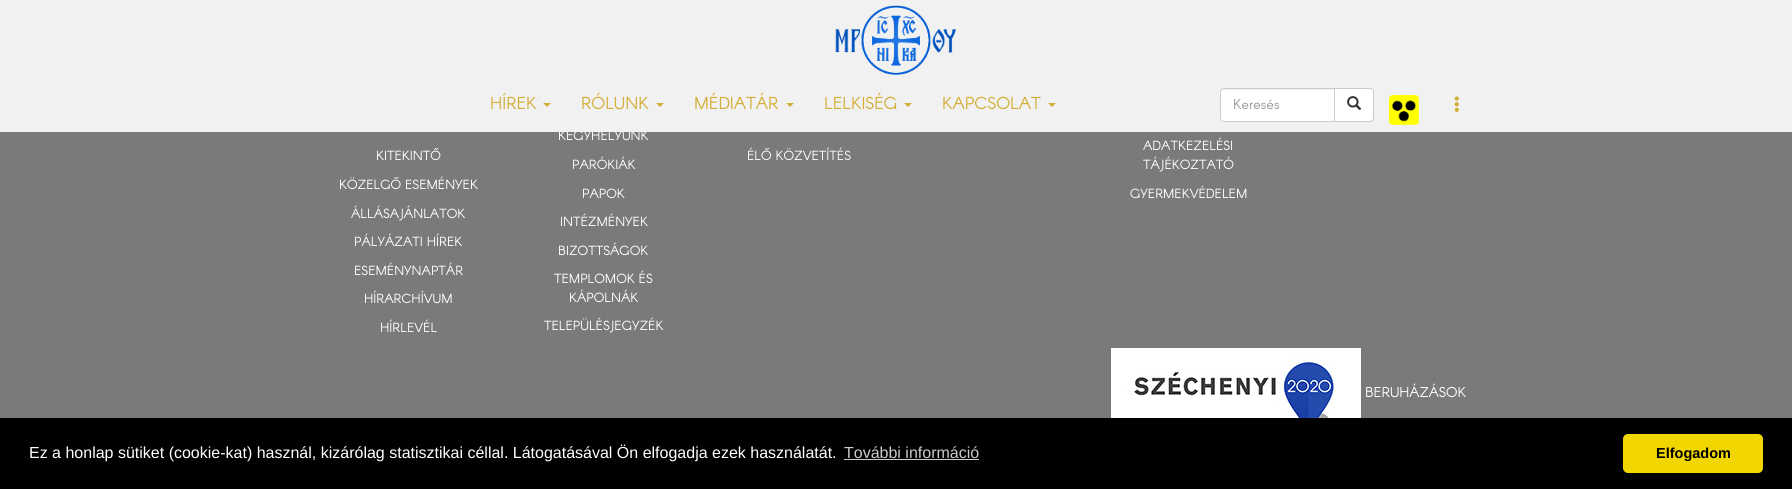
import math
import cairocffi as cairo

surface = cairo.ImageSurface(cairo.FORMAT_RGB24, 1792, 489)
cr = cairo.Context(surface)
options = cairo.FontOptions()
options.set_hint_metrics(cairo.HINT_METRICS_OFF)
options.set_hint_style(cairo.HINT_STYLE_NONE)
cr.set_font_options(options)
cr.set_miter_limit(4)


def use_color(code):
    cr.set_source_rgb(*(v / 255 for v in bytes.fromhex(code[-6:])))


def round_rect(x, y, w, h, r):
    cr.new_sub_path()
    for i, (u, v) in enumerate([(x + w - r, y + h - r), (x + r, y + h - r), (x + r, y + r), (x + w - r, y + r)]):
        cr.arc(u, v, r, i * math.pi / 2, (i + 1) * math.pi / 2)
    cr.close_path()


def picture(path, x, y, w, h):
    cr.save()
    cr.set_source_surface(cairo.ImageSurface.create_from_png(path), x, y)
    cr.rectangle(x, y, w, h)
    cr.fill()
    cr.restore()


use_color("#7a7a7a")
cr.paint()
cr.select_font_face("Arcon")
cr.set_font_size(13)
use_color("#ffffff")
cr.move_to(558, 140)
cr.show_text("KEGYHELYÜNK")
use_color("#f1f1f1")
cr.rectangle(0, 0, 1792, 132)
cr.fill()
picture("img1.png", 835, 5, 122, 70)
cr.set_font_size(17)
use_color("#d4af37")
cr.move_to(490, 109)
cr.show_text("HÍREK")
cr.new_path()
cr.move_to(543, 103)
cr.line_to(551, 103)
cr.line_to(547, 107)
cr.close_path()
cr.fill()
cr.move_to(581, 109)
cr.show_text("RÓLUNK")
cr.new_path()
cr.move_to(656, 103)
cr.line_to(664, 103)
cr.line_to(660, 107)
cr.close_path()
cr.fill()
cr.move_to(694, 109)
cr.show_text("MÉDIATÁR")
cr.new_path()
cr.move_to(786, 103)
cr.line_to(794, 103)
cr.line_to(790, 107)
cr.close_path()
cr.fill()
cr.move_to(824, 109)
cr.show_text("LELKISÉG")
cr.new_path()
cr.move_to(904, 103)
cr.line_to(912, 103)
cr.line_to(908, 107)
cr.close_path()
cr.fill()
cr.move_to(942, 109)
cr.show_text("KAPCSOLAT")
cr.new_path()
cr.move_to(1048, 103)
cr.line_to(1056, 103)
cr.line_to(1052, 107)
cr.close_path()
cr.fill()
use_color("#ffffff")
cr.new_path()
cr.move_to(1224, 88)
cr.line_to(1335, 88)
cr.line_to(1335, 122)
cr.line_to(1224, 122)
cr.curve_to(1222, 122, 1220, 120, 1220, 118)
cr.line_to(1220, 92)
cr.curve_to(1220, 90, 1222, 88, 1224, 88)
cr.close_path()
cr.fill()
use_color("#ececec")
cr.new_path()
cr.move_to(1224, 90)
cr.line_to(1334, 90)
cr.line_to(1334, 89)
cr.line_to(1224, 89)
cr.curve_to(1222, 89, 1221, 90, 1221, 92)
cr.line_to(1221, 93)
cr.curve_to(1221, 91, 1222, 90, 1224, 90)
cr.close_path()
cr.fill()
cr.new_path()
cr.move_to(1224, 88.5)
cr.line_to(1334.5, 88.5)
cr.line_to(1334.5, 121.5)
cr.line_to(1224, 121.5)
cr.curve_to(1222, 121.5, 1220.5, 120, 1220.5, 118)
cr.line_to(1220.5, 92)
cr.curve_to(1220.5, 90, 1222, 88.5, 1224, 88.5)
cr.close_path()
use_color("#cccccc")
cr.set_line_width(1)
cr.stroke()
cr.set_font_size(14)
use_color("#999999")
cr.move_to(1233, 109)
cr.show_text("Keresés")
use_color("#ffffff")
cr.new_path()
cr.move_to(1334.5, 88.5)
cr.line_to(1370, 88.5)
cr.curve_to(1372, 88.5, 1373.5, 90, 1373.5, 92)
cr.line_to(1373.5, 118)
cr.curve_to(1373.5, 120, 1372, 121.5, 1370, 121.5)
cr.line_to(1334.5, 121.5)
cr.close_path()
cr.fill_preserve()
use_color("#cccccc")
cr.stroke()
picture("img2.png", 1347, 96, 15, 14)
picture("img3.png", 1389, 95, 30, 30)
picture("img4.png", 1454, 96, 5, 16)
cr.set_font_size(13)
use_color("#ffffff")
cr.move_to(376, 160)
cr.show_text("KITEKINTŐ")
cr.move_to(339, 189)
cr.show_text("KÖZELGŐ ESEMÉNYEK")
cr.move_to(351, 218)
cr.show_text("ÁLLÁSAJÁNLATOK")
cr.move_to(354, 246)
cr.show_text("PÁLYÁZATI HÍREK")
cr.move_to(354, 275)
cr.show_text("ESEMÉNYNAPTÁR")
cr.move_to(364, 303)
cr.show_text("HÍRARCHÍVUM")
cr.move_to(380, 332)
cr.show_text("HÍRLEVÉL")
cr.move_to(572, 169)
cr.show_text("PARÓKIÁK")
cr.move_to(582, 198)
cr.show_text("PAPOK")
cr.move_to(560, 226)
cr.show_text("INTÉZMÉNYEK")
cr.move_to(558, 255)
cr.show_text("BIZOTTSÁGOK")
cr.move_to(554, 283)
cr.show_text("TEMPLOMOK ÉS")
cr.move_to(569, 302)
cr.show_text("KÁPOLNÁK")
cr.move_to(544, 330)
cr.show_text("TELEPÜLÉSJEGYZÉK")
cr.move_to(747, 160)
cr.show_text("ÉLŐ KÖZVETÍTÉS")
cr.move_to(1143, 150)
cr.show_text("ADATKEZELÉSI")
cr.move_to(1143, 169)
cr.show_text("TÁJÉKOZTATÓ")
cr.move_to(1130, 198)
cr.show_text("GYERMEKVÉDELEM")
picture("img5.png", 1111, 348, 250, 70)
cr.set_font_size(14)
cr.move_to(1365, 397)
cr.show_text("BERUHÁZÁSOK")
use_color("#000000")
cr.rectangle(0, 418, 1792, 71)
cr.fill()
cr.select_font_face("Liberation Sans")
cr.set_font_size(16)
use_color("#ffffff")
cr.move_to(29, 458)
cr.show_text("Ez a honlap sütiket (cookie-kat) használ, kizárólag statisztikai céllal. Látogatásával Ön elfogadja ezek használatát.")
use_color("#cccccc")
cr.move_to(844, 458)
cr.show_text("További információ")
cr.rectangle(844, 459, 135, 1)
cr.fill()
use_color("#f1d600")
round_rect(1623, 434, 140, 39, 5)
cr.fill()
cr.select_font_face("Liberation Sans", cairo.FONT_SLANT_NORMAL, cairo.FONT_WEIGHT_BOLD)
cr.set_font_size(14.5)
use_color("#000000")
cr.move_to(1656, 458)
cr.show_text("Elfogadom")
surface.write_to_png("result.png")
